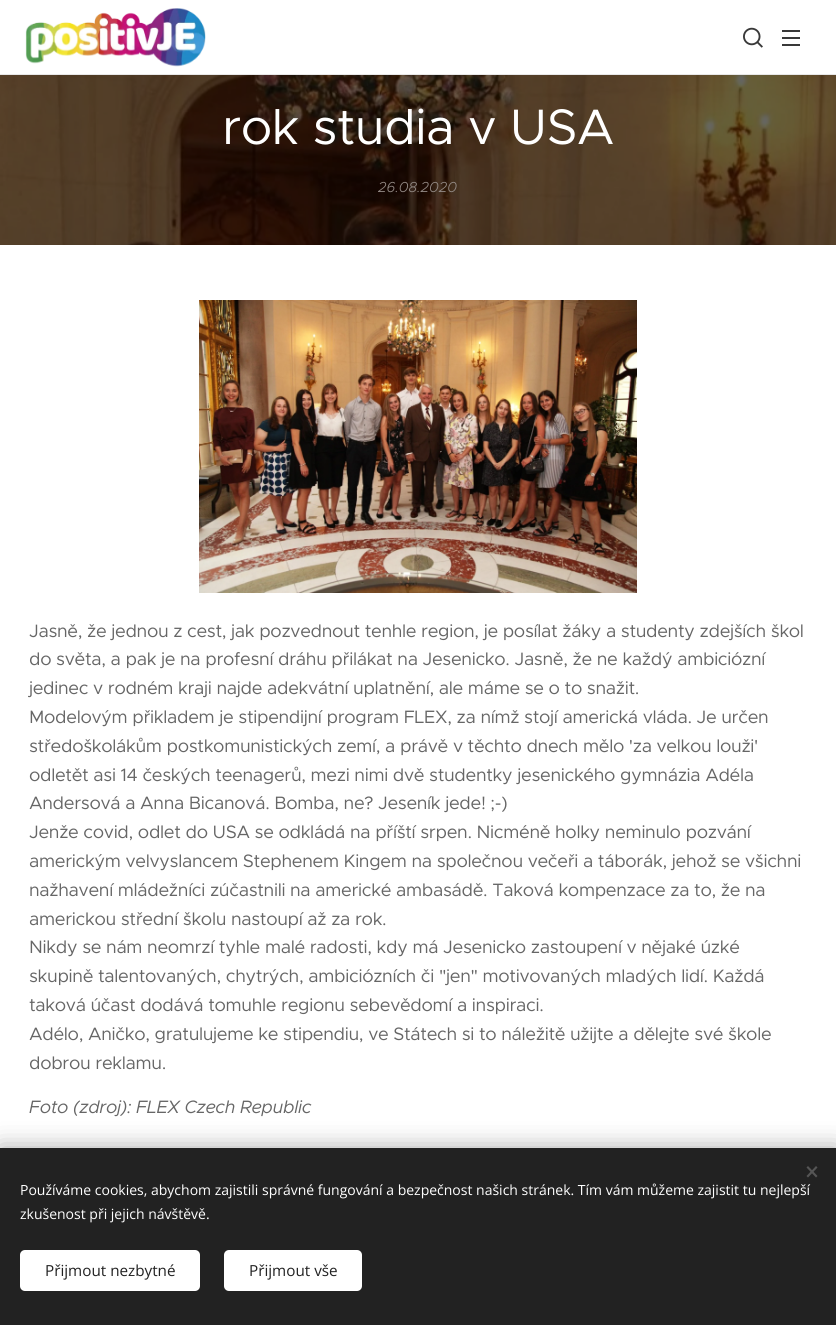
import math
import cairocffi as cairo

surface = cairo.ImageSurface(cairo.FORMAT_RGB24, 836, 1325)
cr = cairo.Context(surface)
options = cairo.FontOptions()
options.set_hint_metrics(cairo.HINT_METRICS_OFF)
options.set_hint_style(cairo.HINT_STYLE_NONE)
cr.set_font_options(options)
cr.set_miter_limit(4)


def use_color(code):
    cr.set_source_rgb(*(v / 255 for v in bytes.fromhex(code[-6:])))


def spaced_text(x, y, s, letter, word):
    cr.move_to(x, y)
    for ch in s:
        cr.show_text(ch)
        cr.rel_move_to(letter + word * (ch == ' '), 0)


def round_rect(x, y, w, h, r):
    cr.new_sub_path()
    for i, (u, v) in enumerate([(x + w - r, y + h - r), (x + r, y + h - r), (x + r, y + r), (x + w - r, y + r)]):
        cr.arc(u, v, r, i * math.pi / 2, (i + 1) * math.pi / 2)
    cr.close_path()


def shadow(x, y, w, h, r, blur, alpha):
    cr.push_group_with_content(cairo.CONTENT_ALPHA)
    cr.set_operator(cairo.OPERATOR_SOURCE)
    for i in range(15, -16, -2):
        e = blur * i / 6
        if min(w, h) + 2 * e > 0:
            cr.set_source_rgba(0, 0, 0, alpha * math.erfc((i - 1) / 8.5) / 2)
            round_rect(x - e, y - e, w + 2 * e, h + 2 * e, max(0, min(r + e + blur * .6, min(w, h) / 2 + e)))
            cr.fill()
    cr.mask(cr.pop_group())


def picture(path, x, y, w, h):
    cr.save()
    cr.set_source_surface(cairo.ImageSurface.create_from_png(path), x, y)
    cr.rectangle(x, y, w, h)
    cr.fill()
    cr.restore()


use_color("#ffffff")
cr.paint()
use_color("#e8e8e8")
cr.rectangle(0, 74, 836, 1)
cr.fill()
picture("img1.png", 25, 8, 181, 59)
picture("img2.png", 743, 27, 20, 21)
use_color("#393939")
cr.rectangle(782, 37, 18, 2)
cr.fill()
cr.rectangle(782, 30, 18, 2)
cr.fill()
cr.rectangle(782, 44, 18, 2)
cr.fill()
picture("img3.png", 0, 75, 836, 170)
cr.select_font_face("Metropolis")
cr.set_font_size(50)
use_color("#ffffff")
spaced_text(222, 144, "rok studia v USA", -0.5, 0)
cr.select_font_face("Metropolis Light", cairo.FONT_SLANT_ITALIC)
cr.set_font_size(14.5)
use_color("#938a85")
cr.move_to(378, 192)
cr.show_text("26.08.2020")
picture("img4.png", 199, 300, 438, 293)
cr.select_font_face("Metropolis")
cr.set_font_size(18)
use_color("#666666")
spaced_text(29, 637, "Jasně, že jednou z cest, jak pozvednout tenhle region, je posílat žáky a studenty zdejších škol", -0.32, 0)
spaced_text(29, 665, "do světa, a pak je na profesní dráhu přilákat na Jesenicko. Jasně, že ne každý ambiciózní", -0.32, 0)
spaced_text(29, 694, "jedinec v rodném kraji najde adekvátní uplatnění, ale máme se o to snažit.", -0.32, 0)
spaced_text(29, 723, "Modelovým přikladem je stipendijní program FLEX, za nímž stojí americká vláda. Je určen", -0.32, 0)
spaced_text(29, 752, "středoškolákům postkomunistických zemí, a právě v těchto dnech mělo 'za velkou louži'", -0.32, 0)
spaced_text(29, 781, "odletět asi 14 českých teenagerů, mezi nimi dvě studentky jesenického gymnázia Adéla", -0.32, 0)
spaced_text(29, 809, "Andersová a Anna Bicanová. Bomba, ne? Jeseník jede! ;-)", -0.32, 0)
spaced_text(29, 838, "Jenže covid, odlet do USA se odkládá na příští srpen. Nicméně holky neminulo pozvání", -0.32, 0)
spaced_text(29, 867, "americkým velvyslancem Stephenem Kingem na společnou večeři a táborák, jehož se všichni", -0.32, 0)
spaced_text(29, 896, "nažhavení mládežníci zúčastnili na americké ambasádě. Taková kompenzace za to, že na", -0.32, 0)
spaced_text(29, 925, "americkou střední školu nastoupí až za rok.", -0.32, 0)
spaced_text(29, 953, "Nikdy se nám neomrzí tyhle malé radosti, kdy má Jesenicko zastoupení v nějaké úzké", -0.32, 0)
spaced_text(29, 982, "skupině talentovaných, chytrých, ambiciózních či \"jen\" motivovaných mladých lidí. Každá", -0.32, 0)
spaced_text(29, 1011, "taková účast dodává tomuhle regionu sebevědomí a inspiraci.", -0.32, 0)
spaced_text(29, 1040, "Adélo, Aničko, gratulujeme ke stipendiu, ve Státech si to náležitě užijte a dělejte své škole", -0.32, 0)
spaced_text(29, 1069, "dobrou reklamu.", -0.32, 0)
cr.select_font_face("Metropolis", cairo.FONT_SLANT_ITALIC)
spaced_text(29, 1113, "Foto (zdroj): FLEX Czech Republic", -0.32, 0)
use_color("#000000")
shadow(0, 1148, 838, 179, 0, 12.5, 0.33)
use_color("#222222")
cr.rectangle(0, 1148, 836, 177)
cr.fill()
use_color("#555555")
cr.new_path()
cr.move_to(806.5, 1176)
cr.line_to(816, 1166)
cr.line_to(817.5, 1167.5)
cr.line_to(808, 1177.5)
cr.close_path()
cr.fill()
cr.new_path()
cr.move_to(808, 1166)
cr.line_to(817.5, 1176)
cr.line_to(816, 1177.5)
cr.line_to(806.5, 1167.5)
cr.close_path()
cr.fill()
cr.select_font_face("Open Sans")
cr.set_font_size(14)
use_color("#ffffff")
cr.move_to(20, 1195)
cr.show_text("Používáme cookies, abychom zajistili správné fungování a bezpečnost našich stránek. Tím vám můžeme zajistit tu nejlepší")
cr.move_to(20, 1219)
cr.show_text("zkušenost při jejich návštěvě.")
round_rect(20, 1250, 180, 41, 5)
cr.fill()
cr.set_font_size(15.25)
use_color("#222222")
cr.move_to(45, 1276)
cr.show_text("Přijmout nezbytné")
use_color("#ffffff")
round_rect(224, 1250, 138, 41, 5)
cr.fill()
use_color("#222222")
cr.move_to(249, 1276)
cr.show_text("Přijmout vše")
surface.write_to_png("result.png")
